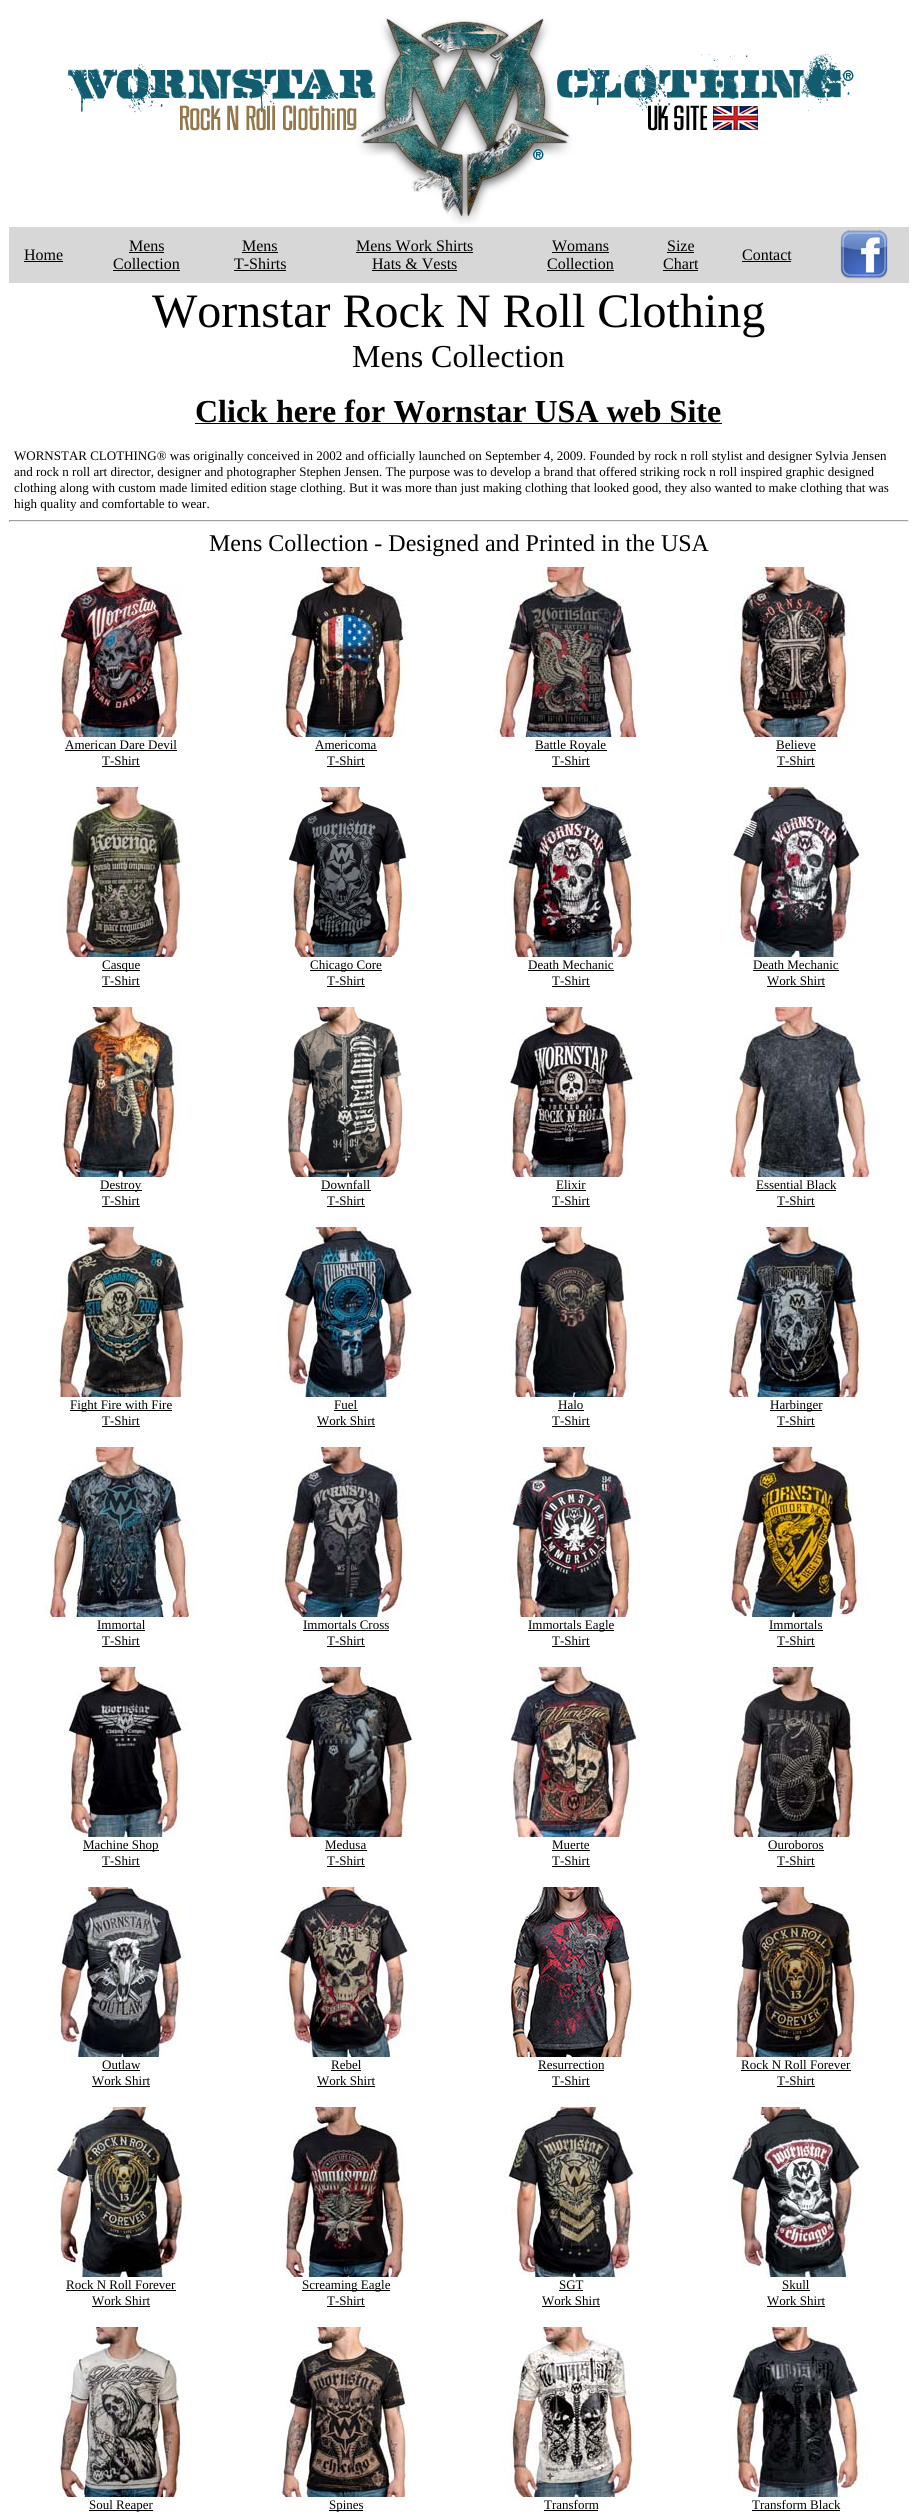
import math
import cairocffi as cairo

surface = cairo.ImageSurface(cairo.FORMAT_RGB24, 917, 2514)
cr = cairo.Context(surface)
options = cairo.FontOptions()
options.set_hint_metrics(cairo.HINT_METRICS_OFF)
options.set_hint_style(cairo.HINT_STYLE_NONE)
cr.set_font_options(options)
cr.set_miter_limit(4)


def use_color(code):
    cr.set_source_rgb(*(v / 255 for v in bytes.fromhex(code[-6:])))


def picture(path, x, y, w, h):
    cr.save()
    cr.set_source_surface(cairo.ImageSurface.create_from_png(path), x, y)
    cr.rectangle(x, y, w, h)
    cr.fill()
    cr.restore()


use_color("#ffffff")
cr.paint()
picture("img1.png", 68, 18, 786, 206)
use_color("#d7d7d7")
cr.rectangle(9, 227, 900, 56)
cr.fill()
cr.select_font_face("Liberation Serif")
cr.set_font_size(16)
use_color("#000000")
cr.move_to(24, 260)
cr.show_text("Home")
cr.rectangle(24, 261, 39, 1)
cr.fill()
cr.move_to(129, 251)
cr.show_text("Mens")
cr.rectangle(129, 252, 35, 1)
cr.fill()
cr.move_to(113, 269)
cr.show_text("Collection")
cr.rectangle(113, 270, 67, 1)
cr.fill()
cr.move_to(242, 251)
cr.show_text("Mens")
cr.rectangle(242, 252, 36, 1)
cr.fill()
cr.move_to(234, 269)
cr.show_text("T-Shirts")
cr.rectangle(234, 270, 52, 1)
cr.fill()
cr.move_to(356, 251)
cr.show_text("Mens Work Shirts")
cr.rectangle(356, 252, 117, 1)
cr.fill()
cr.move_to(372, 269)
cr.show_text("Hats & Vests")
cr.rectangle(372, 270, 85, 1)
cr.fill()
cr.move_to(552, 251)
cr.show_text("Womans")
cr.rectangle(552, 252, 57, 1)
cr.fill()
cr.move_to(547, 269)
cr.show_text("Collection")
cr.rectangle(547, 270, 67, 1)
cr.fill()
cr.move_to(667, 251)
cr.show_text("Size")
cr.rectangle(667, 252, 27, 1)
cr.fill()
cr.move_to(663, 269)
cr.show_text("Chart")
cr.rectangle(663, 270, 35, 1)
cr.fill()
cr.move_to(742, 260)
cr.show_text("Contact")
cr.rectangle(742, 261, 49, 1)
cr.fill()
picture("img2.png", 840, 230, 48, 49)
cr.set_font_size(48)
cr.move_to(152, 327)
cr.show_text("Wornstar Rock N Roll Clothing")
cr.set_font_size(32)
cr.move_to(352, 367)
cr.show_text("Mens Collection")
cr.select_font_face("Liberation Serif", cairo.FONT_SLANT_NORMAL, cairo.FONT_WEIGHT_BOLD)
cr.move_to(195, 422)
cr.show_text("Click here for Wornstar USA web Site")
cr.rectangle(195, 423, 527, 1)
cr.fill()
cr.select_font_face("Liberation Serif")
cr.set_font_size(13)
cr.move_to(14, 460)
cr.show_text("WORNSTAR CLOTHING® was originally conceived in 2002 and officially launched on September 4, 2009. Founded by rock n roll stylist and designer Sylvia Jensen")
cr.move_to(14, 476)
cr.show_text("and rock n roll art director, designer and photographer Stephen Jensen. The purpose was to develop a brand that offered striking rock n roll inspired graphic designed")
cr.move_to(14, 492)
cr.show_text("clothing along with custom made limited edition stage clothing. But it was more than just making clothing that looked good, they also wanted to make clothing that was")
cr.move_to(14, 508)
cr.show_text("high quality and comfortable to wear.")
use_color("#9f9f9f")
cr.rectangle(9, 520, 900, 1)
cr.fill()
use_color("#eeeeee")
cr.rectangle(908, 520, 1, 2)
cr.fill()
cr.rectangle(9, 521, 900, 1)
cr.fill()
use_color("#9f9f9f")
cr.rectangle(9, 520, 1, 2)
cr.fill()
cr.set_font_size(24)
use_color("#000000")
cr.move_to(209, 551)
cr.show_text("Mens Collection - Designed and Printed in the USA")
picture("img3.png", 52, 567, 136, 170)
cr.set_font_size(13)
cr.move_to(65, 749)
cr.show_text("American Dare Devil")
cr.rectangle(65, 750, 112, 1)
cr.fill()
cr.move_to(102, 765)
cr.show_text("T-Shirt")
cr.rectangle(102, 766, 38, 1)
cr.fill()
picture("img4.png", 278, 567, 127, 170)
cr.move_to(315, 749)
cr.show_text("Americoma")
cr.rectangle(315, 750, 62, 1)
cr.fill()
cr.move_to(327, 765)
cr.show_text("T-Shirt")
cr.rectangle(327, 766, 38, 1)
cr.fill()
picture("img5.png", 486, 567, 152, 170)
cr.rectangle(535, 750, 72, 1)
cr.fill()
cr.move_to(535, 749)
cr.show_text("Battle Royale")
cr.move_to(552, 765)
cr.show_text("T-Shirt")
cr.rectangle(552, 766, 38, 1)
cr.fill()
picture("img6.png", 727, 567, 128, 170)
cr.move_to(776, 749)
cr.show_text("Believe")
cr.rectangle(776, 750, 40, 1)
cr.fill()
cr.move_to(777, 765)
cr.show_text("T-Shirt")
cr.rectangle(777, 766, 38, 1)
cr.fill()
picture("img7.png", 60, 787, 122, 170)
cr.rectangle(102, 970, 38, 1)
cr.fill()
cr.move_to(102, 969)
cr.show_text("Casque")
cr.move_to(102, 985)
cr.show_text("T-Shirt")
cr.rectangle(102, 986, 38, 1)
cr.fill()
picture("img8.png", 288, 787, 122, 170)
cr.rectangle(310, 970, 72, 1)
cr.fill()
cr.move_to(310, 969)
cr.show_text("Chicago Core")
cr.move_to(327, 985)
cr.show_text("T-Shirt")
cr.rectangle(327, 986, 38, 1)
cr.fill()
picture("img9.png", 502, 787, 136, 170)
cr.move_to(528, 969)
cr.show_text("Death Mechanic")
cr.rectangle(528, 970, 86, 1)
cr.fill()
cr.move_to(552, 985)
cr.show_text("T-Shirt")
cr.rectangle(552, 986, 38, 1)
cr.fill()
picture("img10.png", 728, 787, 135, 170)
cr.move_to(753, 969)
cr.show_text("Death Mechanic")
cr.rectangle(753, 970, 86, 1)
cr.fill()
cr.move_to(767, 985)
cr.show_text("Work Shirt")
cr.rectangle(767, 986, 58, 1)
cr.fill()
picture("img11.png", 58, 1007, 122, 170)
cr.rectangle(100, 1190, 42, 1)
cr.fill()
cr.move_to(100, 1189)
cr.show_text("Destroy")
cr.move_to(102, 1205)
cr.show_text("T-Shirt")
cr.rectangle(102, 1206, 38, 1)
cr.fill()
picture("img12.png", 286, 1007, 117, 170)
cr.move_to(321, 1189)
cr.show_text("Downfall")
cr.rectangle(321, 1190, 50, 1)
cr.fill()
cr.move_to(327, 1205)
cr.show_text("T-Shirt")
cr.rectangle(327, 1206, 38, 1)
cr.fill()
picture("img13.png", 502, 1007, 136, 170)
cr.move_to(556, 1189)
cr.show_text("Elixir")
cr.rectangle(556, 1190, 30, 1)
cr.fill()
cr.move_to(552, 1205)
cr.show_text("T-Shirt")
cr.rectangle(552, 1206, 38, 1)
cr.fill()
picture("img14.png", 727, 1007, 144, 170)
cr.move_to(756, 1189)
cr.show_text("Essential Black")
cr.rectangle(756, 1190, 80, 1)
cr.fill()
cr.move_to(777, 1205)
cr.show_text("T-Shirt")
cr.rectangle(777, 1206, 38, 1)
cr.fill()
picture("img15.png", 52, 1227, 144, 170)
cr.rectangle(70, 1410, 102, 1)
cr.fill()
cr.move_to(70, 1409)
cr.show_text("Fight Fire with Fire")
cr.move_to(102, 1425)
cr.show_text("T-Shirt")
cr.rectangle(102, 1426, 38, 1)
cr.fill()
picture("img16.png", 277, 1227, 136, 170)
cr.move_to(334, 1409)
cr.show_text("Fuel")
cr.rectangle(334, 1410, 24, 1)
cr.fill()
cr.move_to(317, 1425)
cr.show_text("Work Shirt")
cr.rectangle(317, 1426, 58, 1)
cr.fill()
picture("img17.png", 510, 1227, 120, 170)
cr.move_to(558, 1409)
cr.show_text("Halo")
cr.rectangle(558, 1410, 26, 1)
cr.fill()
cr.move_to(552, 1425)
cr.show_text("T-Shirt")
cr.rectangle(552, 1426, 38, 1)
cr.fill()
picture("img18.png", 727, 1227, 136, 170)
cr.rectangle(770, 1410, 52, 1)
cr.fill()
cr.move_to(770, 1409)
cr.show_text("Harbinger")
cr.move_to(777, 1425)
cr.show_text("T-Shirt")
cr.rectangle(777, 1426, 38, 1)
cr.fill()
picture("img19.png", 44, 1447, 152, 170)
cr.move_to(97, 1629)
cr.show_text("Immortal")
cr.rectangle(97, 1630, 48, 1)
cr.fill()
cr.move_to(102, 1645)
cr.show_text("T-Shirt")
cr.rectangle(102, 1646, 38, 1)
cr.fill()
picture("img20.png", 279, 1447, 126, 170)
cr.move_to(303, 1629)
cr.show_text("Immortals Cross")
cr.rectangle(303, 1630, 86, 1)
cr.fill()
cr.move_to(327, 1645)
cr.show_text("T-Shirt")
cr.rectangle(327, 1646, 38, 1)
cr.fill()
picture("img21.png", 510, 1447, 127, 170)
cr.rectangle(528, 1630, 86, 1)
cr.fill()
cr.move_to(528, 1629)
cr.show_text("Immortals Eagle")
cr.move_to(552, 1645)
cr.show_text("T-Shirt")
cr.rectangle(552, 1646, 38, 1)
cr.fill()
picture("img22.png", 727, 1447, 142, 170)
cr.move_to(769, 1629)
cr.show_text("Immortals")
cr.rectangle(769, 1630, 54, 1)
cr.fill()
cr.move_to(777, 1645)
cr.show_text("T-Shirt")
cr.rectangle(777, 1646, 38, 1)
cr.fill()
picture("img23.png", 68, 1667, 120, 170)
cr.rectangle(83, 1850, 76, 1)
cr.fill()
cr.move_to(83, 1849)
cr.show_text("Machine Shop")
cr.move_to(102, 1865)
cr.show_text("T-Shirt")
cr.rectangle(102, 1866, 38, 1)
cr.fill()
picture("img24.png", 283, 1667, 130, 170)
cr.move_to(325, 1849)
cr.show_text("Medusa")
cr.rectangle(325, 1850, 42, 1)
cr.fill()
cr.move_to(327, 1865)
cr.show_text("T-Shirt")
cr.rectangle(327, 1866, 38, 1)
cr.fill()
picture("img25.png", 510, 1667, 128, 170)
cr.move_to(552, 1849)
cr.show_text("Muerte")
cr.rectangle(552, 1850, 38, 1)
cr.fill()
cr.move_to(552, 1865)
cr.show_text("T-Shirt")
cr.rectangle(552, 1866, 38, 1)
cr.fill()
picture("img26.png", 727, 1667, 128, 170)
cr.move_to(768, 1849)
cr.show_text("Ouroboros")
cr.rectangle(768, 1850, 56, 1)
cr.fill()
cr.move_to(777, 1865)
cr.show_text("T-Shirt")
cr.rectangle(777, 1866, 38, 1)
cr.fill()
picture("img27.png", 52, 1887, 135, 170)
cr.move_to(102, 2069)
cr.show_text("Outlaw")
cr.rectangle(102, 2070, 38, 1)
cr.fill()
cr.move_to(92, 2085)
cr.show_text("Work Shirt")
cr.rectangle(92, 2086, 58, 1)
cr.fill()
picture("img28.png", 277, 1887, 136, 170)
cr.move_to(331, 2069)
cr.show_text("Rebel")
cr.rectangle(331, 2070, 30, 1)
cr.fill()
cr.move_to(317, 2085)
cr.show_text("Work Shirt")
cr.rectangle(317, 2086, 58, 1)
cr.fill()
picture("img29.png", 510, 1887, 127, 170)
cr.move_to(538, 2069)
cr.show_text("Resurrection")
cr.rectangle(538, 2070, 66, 1)
cr.fill()
cr.move_to(552, 2085)
cr.show_text("T-Shirt")
cr.rectangle(552, 2086, 38, 1)
cr.fill()
picture("img30.png", 734, 1887, 121, 170)
cr.move_to(741, 2069)
cr.show_text("Rock N Roll Forever")
cr.rectangle(741, 2070, 110, 1)
cr.fill()
cr.move_to(777, 2085)
cr.show_text("T-Shirt")
cr.rectangle(777, 2086, 38, 1)
cr.fill()
picture("img31.png", 52, 2107, 140, 170)
cr.move_to(66, 2289)
cr.show_text("Rock N Roll Forever")
cr.rectangle(66, 2290, 110, 1)
cr.fill()
cr.move_to(92, 2305)
cr.show_text("Work Shirt")
cr.rectangle(92, 2306, 58, 1)
cr.fill()
picture("img32.png", 285, 2107, 120, 170)
cr.rectangle(302, 2290, 88, 1)
cr.fill()
cr.move_to(302, 2289)
cr.show_text("Screaming Eagle")
cr.move_to(327, 2305)
cr.show_text("T-Shirt")
cr.rectangle(327, 2306, 38, 1)
cr.fill()
picture("img33.png", 502, 2107, 135, 170)
cr.move_to(559, 2289)
cr.show_text("SGT")
cr.rectangle(559, 2290, 24, 1)
cr.fill()
cr.move_to(542, 2305)
cr.show_text("Work Shirt")
cr.rectangle(542, 2306, 58, 1)
cr.fill()
picture("img34.png", 727, 2107, 136, 170)
cr.move_to(782, 2289)
cr.show_text("Skull")
cr.rectangle(782, 2290, 28, 1)
cr.fill()
cr.move_to(767, 2305)
cr.show_text("Work Shirt")
cr.rectangle(767, 2306, 58, 1)
cr.fill()
picture("img35.png", 55, 2327, 131, 170)
cr.rectangle(89, 2510, 64, 1)
cr.fill()
cr.move_to(89, 2509)
cr.show_text("Soul Reaper")
picture("img36.png", 277, 2327, 130, 170)
cr.rectangle(329, 2510, 34, 1)
cr.fill()
cr.move_to(329, 2509)
cr.show_text("Spines")
picture("img37.png", 502, 2327, 139, 170)
cr.move_to(544, 2509)
cr.show_text("Transform")
cr.rectangle(544, 2510, 54, 1)
cr.fill()
picture("img38.png", 728, 2327, 141, 170)
cr.move_to(752, 2509)
cr.show_text("Transform Black")
cr.rectangle(752, 2510, 88, 1)
cr.fill()
surface.write_to_png("result.png")
